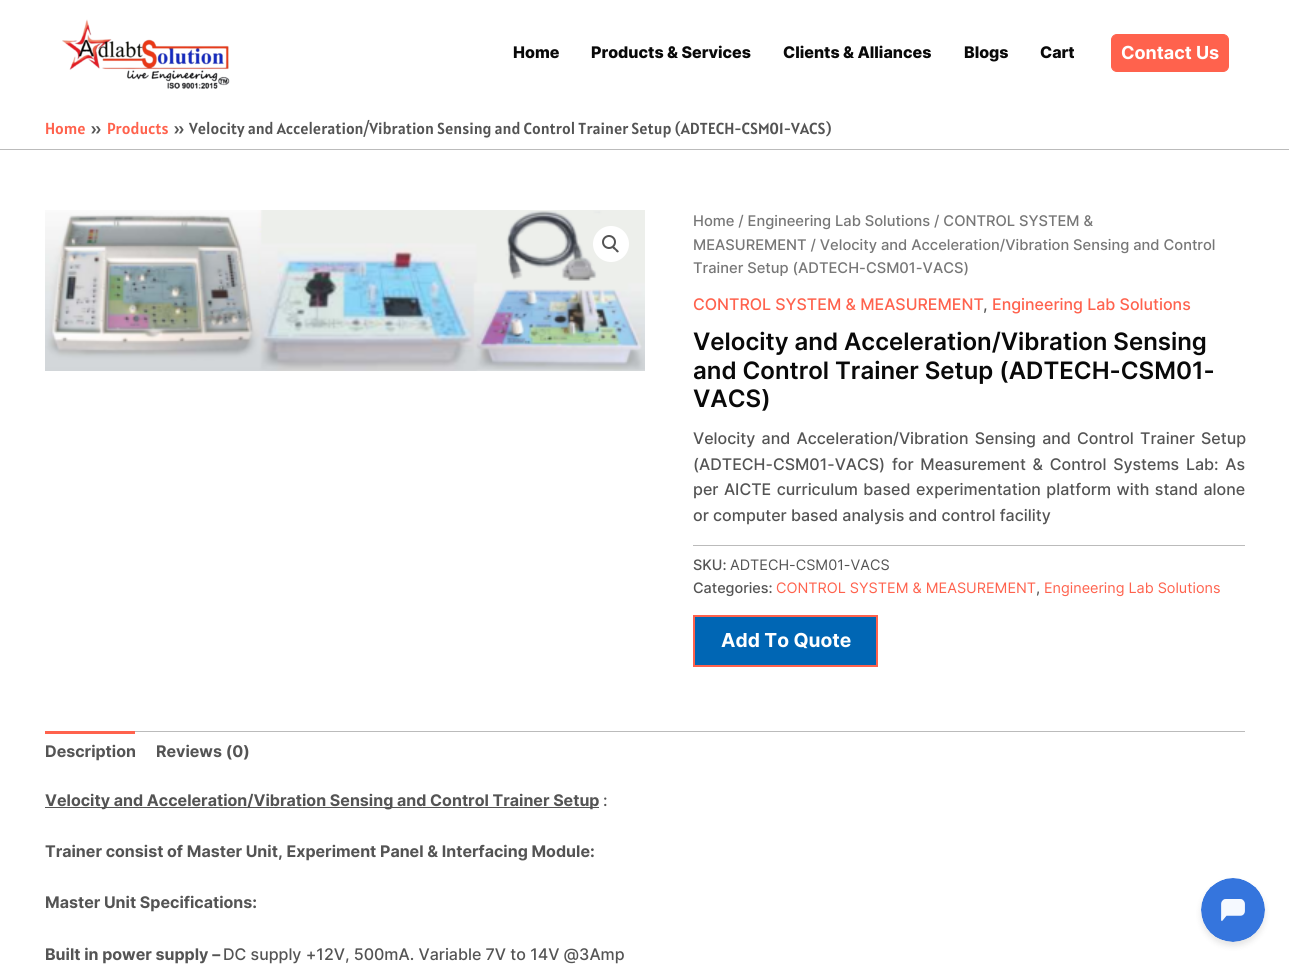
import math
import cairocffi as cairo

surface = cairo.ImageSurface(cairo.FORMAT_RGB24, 1289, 966)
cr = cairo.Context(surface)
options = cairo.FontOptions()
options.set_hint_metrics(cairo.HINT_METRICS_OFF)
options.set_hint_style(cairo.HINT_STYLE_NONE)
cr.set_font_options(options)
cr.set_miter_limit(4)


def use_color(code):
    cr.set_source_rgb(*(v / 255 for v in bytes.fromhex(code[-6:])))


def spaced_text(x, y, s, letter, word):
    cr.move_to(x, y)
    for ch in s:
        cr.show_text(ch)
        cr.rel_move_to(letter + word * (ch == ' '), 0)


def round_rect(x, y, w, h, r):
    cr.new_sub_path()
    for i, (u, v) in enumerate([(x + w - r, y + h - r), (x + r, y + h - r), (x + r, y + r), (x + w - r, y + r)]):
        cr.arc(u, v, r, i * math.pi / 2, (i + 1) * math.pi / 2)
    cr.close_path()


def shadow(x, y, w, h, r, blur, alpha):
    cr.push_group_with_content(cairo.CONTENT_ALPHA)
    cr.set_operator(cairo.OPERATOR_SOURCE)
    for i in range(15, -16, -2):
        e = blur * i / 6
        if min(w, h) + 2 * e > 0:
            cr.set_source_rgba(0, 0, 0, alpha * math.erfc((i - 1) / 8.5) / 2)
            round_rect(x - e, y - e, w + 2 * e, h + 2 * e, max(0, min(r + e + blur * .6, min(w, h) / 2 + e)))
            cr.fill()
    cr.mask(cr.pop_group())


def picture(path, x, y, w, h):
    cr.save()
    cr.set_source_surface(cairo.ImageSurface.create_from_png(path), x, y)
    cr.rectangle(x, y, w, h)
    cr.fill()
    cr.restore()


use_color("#ffffff")
cr.paint()
picture("img1.png", 62, 19, 168, 70)
cr.select_font_face("Inter ExtraBold")
cr.set_font_size(16)
use_color("#090909")
cr.move_to(513, 58)
cr.show_text("Home")
cr.move_to(591, 58)
cr.show_text("Products & Services")
cr.move_to(783, 58)
cr.show_text("Clients & Alliances")
cr.move_to(964, 58)
cr.show_text("Blogs")
cr.move_to(1040, 58)
cr.show_text("Cart")
use_color("#ff624d")
round_rect(1111.5, 34.5, 117, 37, 5.5)
cr.fill_preserve()
cr.set_line_width(1)
cr.stroke()
cr.select_font_face("Inter", cairo.FONT_SLANT_NORMAL, cairo.FONT_WEIGHT_BOLD)
cr.set_font_size(18)
use_color("#ffffff")
cr.move_to(1121, 59)
cr.show_text("Contact Us")
use_color("#bbbbbb")
cr.rectangle(0, 149, 1289, 1)
cr.fill()
cr.select_font_face("Alatsi")
cr.set_font_size(16)
use_color("#ff624d")
cr.move_to(45, 134)
cr.show_text("Home")
use_color("#545454")
cr.move_to(90, 134)
cr.show_text("»")
use_color("#ff624d")
cr.move_to(107, 134)
cr.show_text("Products")
use_color("#545454")
cr.move_to(173, 134)
cr.show_text("»")
cr.move_to(189, 134)
cr.show_text("Velocity and Acceleration/Vibration Sensing and Control Trainer Setup (ADTECH-CSM01-VACS)")
picture("img2.png", 45, 210, 600, 161)
use_color("#ffffff")
cr.arc(611, 244, 18, 0, 2 * math.pi)
cr.fill()
cr.arc(609, 242, 6, 0, 2 * math.pi)
use_color("#545454")
cr.set_line_width(2)
cr.stroke()
cr.new_path()
cr.move_to(612.5, 246.5)
cr.curve_to(614, 245.5, 615.5, 248, 616, 248.5)
cr.curve_to(617, 249.5, 619.5, 251, 618.5, 252)
cr.curve_to(617, 253.5, 615.5, 250.5, 615, 250)
cr.curve_to(614, 249.5, 611.5, 248, 612.5, 246.5)
cr.close_path()
cr.fill()
cr.select_font_face("Inter Medium")
cr.set_font_size(14.7)
use_color("#777777")
cr.move_to(693, 226)
cr.show_text("Home / Engineering Lab Solutions / CONTROL SYSTEM &")
cr.move_to(693, 250)
cr.show_text("MEASUREMENT / Velocity and Acceleration/Vibration Sensing and Control")
cr.move_to(693, 273)
cr.show_text("Trainer Setup (ADTECH-CSM01-VACS)")
cr.set_font_size(16)
use_color("#ff624d")
cr.move_to(693, 310)
cr.show_text("CONTROL SYSTEM & MEASUREMENT")
use_color("#545454")
cr.move_to(983, 310)
cr.show_text(",")
use_color("#ff624d")
cr.move_to(992, 310)
cr.show_text("Engineering Lab Solutions")
cr.select_font_face("Inter SemiBold")
cr.set_font_size(24)
use_color("#090909")
cr.move_to(693, 350)
cr.show_text("Velocity and Acceleration/Vibration Sensing")
cr.move_to(693, 379)
cr.show_text("and Control Trainer Setup (ADTECH-CSM01-")
cr.move_to(693, 407)
cr.show_text("VACS)")
cr.select_font_face("Inter Medium")
cr.set_font_size(16)
use_color("#545454")
spaced_text(693, 444, "Velocity and Acceleration/Vibration Sensing and Control Trainer Setup", 0, 2)
spaced_text(693, 470, "(ADTECH-CSM01-VACS) for Measurement & Control Systems Lab: As", 0, 2.5)
spaced_text(693, 495, "per AICTE curriculum based experimentation platform with stand alone", 0, 1.25)
cr.move_to(693, 521)
cr.show_text("or computer based analysis and control facility")
use_color("#bbbbbb")
cr.rectangle(693, 545, 552, 1)
cr.fill()
cr.set_font_size(14.4)
use_color("#545454")
cr.move_to(693, 570)
cr.show_text("SKU:")
cr.select_font_face("Inter")
cr.move_to(730, 570)
cr.show_text("ADTECH-CSM01-VACS")
cr.select_font_face("Inter Medium")
cr.move_to(693, 593)
cr.show_text("Categories:")
cr.select_font_face("Inter")
use_color("#ff624d")
cr.move_to(776, 593)
cr.show_text("CONTROL SYSTEM & MEASUREMENT")
cr.select_font_face("Inter Medium")
use_color("#545454")
cr.move_to(1036, 593)
cr.show_text(",")
cr.select_font_face("Inter")
use_color("#ff624d")
cr.move_to(1044, 593)
cr.show_text("Engineering Lab Solutions")
use_color("#0066b4")
cr.rectangle(694, 616, 183, 50)
cr.fill_preserve()
use_color("#ff624d")
cr.stroke()
cr.select_font_face("Inter", cairo.FONT_SLANT_NORMAL, cairo.FONT_WEIGHT_BOLD)
cr.set_font_size(19.25)
use_color("#ffffff")
cr.move_to(721, 647)
cr.show_text("Add To Quote")
use_color("#bbbbbb")
cr.rectangle(135, 731, 1110, 1)
cr.fill()
use_color("#ff624d")
cr.rectangle(45, 731, 90, 3)
cr.fill()
cr.set_font_size(16)
use_color("#545454")
cr.move_to(45, 757)
cr.show_text("Description")
cr.move_to(156, 757)
cr.show_text("Reviews (0)")
cr.rectangle(45, 807, 554, 1)
cr.fill()
cr.move_to(45, 806)
cr.show_text("Velocity and Acceleration/Vibration Sensing and Control Trainer Setup")
cr.select_font_face("Inter Medium")
cr.move_to(603, 806)
cr.show_text(":")
cr.select_font_face("Inter", cairo.FONT_SLANT_NORMAL, cairo.FONT_WEIGHT_BOLD)
cr.move_to(45, 857)
cr.show_text("Trainer consist of Master Unit, Experiment Panel & Interfacing Module:")
cr.move_to(45, 908)
cr.show_text("Master Unit Specifications:")
cr.move_to(45, 960)
cr.show_text("Built in power supply –")
cr.select_font_face("Inter Medium")
cr.move_to(223, 960)
cr.show_text("DC supply +12V, 500mA. Variable 7V to 14V @3Amp")
use_color("#000000")
shadow(1201, 882, 64, 64, 32, 3, 0.1)
picture("img3.png", 1201, 878, 64, 64)
surface.write_to_png("result.png")
